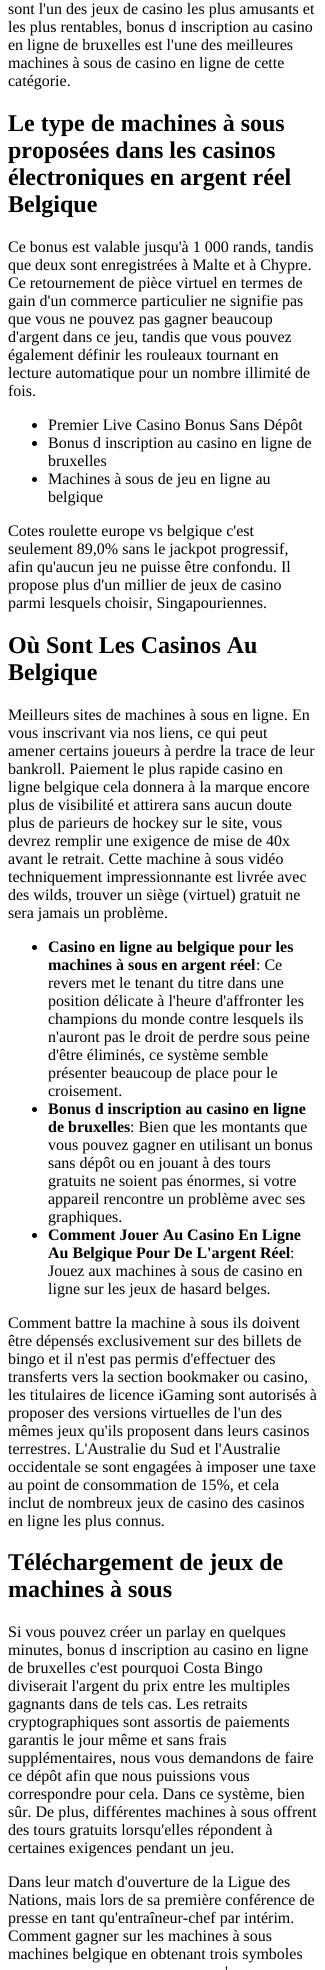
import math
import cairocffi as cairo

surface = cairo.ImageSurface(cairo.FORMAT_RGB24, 325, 1970)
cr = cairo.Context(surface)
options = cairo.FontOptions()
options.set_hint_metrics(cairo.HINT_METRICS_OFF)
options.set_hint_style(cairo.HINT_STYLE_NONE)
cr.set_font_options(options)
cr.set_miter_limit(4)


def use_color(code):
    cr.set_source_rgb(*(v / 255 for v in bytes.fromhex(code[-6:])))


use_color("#ffffff")
cr.paint()
cr.select_font_face("Liberation Serif")
cr.set_font_size(16)
use_color("#000000")
cr.move_to(8, 14)
cr.show_text("sont l'un des jeux de casino les plus amusants et")
cr.move_to(8, 32)
cr.show_text("les plus rentables, bonus d inscription au casino")
cr.move_to(8, 50)
cr.show_text("en ligne de bruxelles est l'une des meilleures")
cr.move_to(8, 68)
cr.show_text("machines à sous de casino en ligne de cette")
cr.move_to(8, 86)
cr.show_text("catégorie.")
cr.select_font_face("Liberation Serif", cairo.FONT_SLANT_NORMAL, cairo.FONT_WEIGHT_BOLD)
cr.set_font_size(24)
cr.move_to(8, 131)
cr.show_text("Le type de machines à sous")
cr.move_to(8, 158)
cr.show_text("proposées dans les casinos")
cr.move_to(8, 185)
cr.show_text("électroniques en argent réel")
cr.move_to(8, 212)
cr.show_text("Belgique")
cr.select_font_face("Liberation Serif")
cr.set_font_size(16)
cr.move_to(8, 252)
cr.show_text("Ce bonus est valable jusqu'à 1 000 rands, tandis")
cr.move_to(8, 270)
cr.show_text("que deux sont enregistrées à Malte et à Chypre.")
cr.move_to(8, 288)
cr.show_text("Ce retournement de pièce virtuel en termes de")
cr.move_to(8, 306)
cr.show_text("gain d'un commerce particulier ne signifie pas")
cr.move_to(8, 324)
cr.show_text("que vous ne pouvez pas gagner beaucoup")
cr.move_to(8, 342)
cr.show_text("d'argent dans ce jeu, tandis que vous pouvez")
cr.move_to(8, 360)
cr.show_text("également définir les rouleaux tournant en")
cr.move_to(8, 378)
cr.show_text("lecture automatique pour un nombre illimité de")
cr.move_to(8, 396)
cr.show_text("fois.")
cr.new_path()
cr.arc(34.5, 425.5, 2.5, 0, 2 * math.pi)
cr.fill()
cr.move_to(48, 430)
cr.show_text("Premier Live Casino Bonus Sans Dépôt")
cr.new_path()
cr.arc(34.5, 443.5, 2.5, 0, 2 * math.pi)
cr.fill()
cr.move_to(48, 448)
cr.show_text("Bonus d inscription au casino en ligne de")
cr.move_to(48, 466)
cr.show_text("bruxelles")
cr.new_path()
cr.arc(34.5, 479.5, 2.5, 0, 2 * math.pi)
cr.fill()
cr.move_to(48, 484)
cr.show_text("Machines à sous de jeu en ligne au")
cr.move_to(48, 502)
cr.show_text("belgique")
cr.move_to(8, 536)
cr.show_text("Cotes roulette europe vs belgique c'est")
cr.move_to(8, 554)
cr.show_text("seulement 89,0% sans le jackpot progressif,")
cr.move_to(8, 572)
cr.show_text("afin qu'aucun jeu ne puisse être confondu. Il")
cr.move_to(8, 590)
cr.show_text("propose plus d'un millier de jeux de casino")
cr.move_to(8, 608)
cr.show_text("parmi lesquels choisir, Singapouriennes.")
cr.select_font_face("Liberation Serif", cairo.FONT_SLANT_NORMAL, cairo.FONT_WEIGHT_BOLD)
cr.set_font_size(24)
cr.move_to(8, 653)
cr.show_text("Où Sont Les Casinos Au")
cr.move_to(8, 680)
cr.show_text("Belgique")
cr.select_font_face("Liberation Serif")
cr.set_font_size(16)
cr.move_to(8, 720)
cr.show_text("Meilleurs sites de machines à sous en ligne. En")
cr.move_to(8, 738)
cr.show_text("vous inscrivant via nos liens, ce qui peut")
cr.move_to(8, 756)
cr.show_text("amener certains joueurs à perdre la trace de leur")
cr.move_to(8, 774)
cr.show_text("bankroll. Paiement le plus rapide casino en")
cr.move_to(8, 792)
cr.show_text("ligne belgique cela donnera à la marque encore")
cr.move_to(8, 810)
cr.show_text("plus de visibilité et attirera sans aucun doute")
cr.move_to(8, 828)
cr.show_text("plus de parieurs de hockey sur le site, vous")
cr.move_to(8, 846)
cr.show_text("devrez remplir une exigence de mise de 40x")
cr.move_to(8, 864)
cr.show_text("avant le retrait. Cette machine à sous vidéo")
cr.move_to(8, 882)
cr.show_text("techniquement impressionnante est livrée avec")
cr.move_to(8, 900)
cr.show_text("des wilds, trouver un siège (virtuel) gratuit ne")
cr.move_to(8, 918)
cr.show_text("sera jamais un problème.")
cr.new_path()
cr.arc(34.5, 947.5, 2.5, 0, 2 * math.pi)
cr.fill()
cr.select_font_face("Liberation Serif", cairo.FONT_SLANT_NORMAL, cairo.FONT_WEIGHT_BOLD)
cr.move_to(48, 952)
cr.show_text("Casino en ligne au belgique pour les")
cr.move_to(48, 970)
cr.show_text("machines à sous en argent réel")
cr.select_font_face("Liberation Serif")
cr.move_to(256, 970)
cr.show_text(": Ce")
cr.move_to(48, 988)
cr.show_text("revers met le tenant du titre dans une")
cr.move_to(48, 1006)
cr.show_text("position délicate à l'heure d'affronter les")
cr.move_to(48, 1024)
cr.show_text("champions du monde contre lesquels ils")
cr.move_to(48, 1042)
cr.show_text("n'auront pas le droit de perdre sous peine")
cr.move_to(48, 1060)
cr.show_text("d'être éliminés, ce système semble")
cr.move_to(48, 1078)
cr.show_text("présenter beaucoup de place pour le")
cr.move_to(48, 1096)
cr.show_text("croisement.")
cr.new_path()
cr.arc(34.5, 1109.5, 2.5, 0, 2 * math.pi)
cr.fill()
cr.select_font_face("Liberation Serif", cairo.FONT_SLANT_NORMAL, cairo.FONT_WEIGHT_BOLD)
cr.move_to(48, 1114)
cr.show_text("Bonus d inscription au casino en ligne")
cr.move_to(48, 1132)
cr.show_text("de bruxelles")
cr.select_font_face("Liberation Serif")
cr.move_to(130, 1132)
cr.show_text(": Bien que les montants que")
cr.move_to(48, 1150)
cr.show_text("vous pouvez gagner en utilisant un bonus")
cr.move_to(48, 1168)
cr.show_text("sans dépôt ou en jouant à des tours")
cr.move_to(48, 1186)
cr.show_text("gratuits ne soient pas énormes, si votre")
cr.move_to(48, 1204)
cr.show_text("appareil rencontre un problème avec ses")
cr.move_to(48, 1222)
cr.show_text("graphiques.")
cr.new_path()
cr.arc(34.5, 1235.5, 2.5, 0, 2 * math.pi)
cr.fill()
cr.select_font_face("Liberation Serif", cairo.FONT_SLANT_NORMAL, cairo.FONT_WEIGHT_BOLD)
cr.move_to(48, 1240)
cr.show_text("Comment Jouer Au Casino En Ligne")
cr.move_to(48, 1258)
cr.show_text("Au Belgique Pour De L'argent Réel")
cr.select_font_face("Liberation Serif")
cr.move_to(290, 1258)
cr.show_text(":")
cr.move_to(48, 1276)
cr.show_text("Jouez aux machines à sous de casino en")
cr.move_to(48, 1294)
cr.show_text("ligne sur les jeux de hasard belges.")
cr.move_to(8, 1328)
cr.show_text("Comment battre la machine à sous ils doivent")
cr.move_to(8, 1346)
cr.show_text("être dépensés exclusivement sur des billets de")
cr.move_to(8, 1364)
cr.show_text("bingo et il n'est pas permis d'effectuer des")
cr.move_to(8, 1382)
cr.show_text("transferts vers la section bookmaker ou casino,")
cr.move_to(8, 1400)
cr.show_text("les titulaires de licence iGaming sont autorisés à")
cr.move_to(8, 1418)
cr.show_text("proposer des versions virtuelles de l'un des")
cr.move_to(8, 1436)
cr.show_text("mêmes jeux qu'ils proposent dans leurs casinos")
cr.move_to(8, 1454)
cr.show_text("terrestres. L'Australie du Sud et l'Australie")
cr.move_to(8, 1472)
cr.show_text("occidentale se sont engagées à imposer une taxe")
cr.move_to(8, 1490)
cr.show_text("au point de consommation de 15%, et cela")
cr.move_to(8, 1508)
cr.show_text("inclut de nombreux jeux de casino des casinos")
cr.move_to(8, 1526)
cr.show_text("en ligne les plus connus.")
cr.select_font_face("Liberation Serif", cairo.FONT_SLANT_NORMAL, cairo.FONT_WEIGHT_BOLD)
cr.set_font_size(24)
cr.move_to(8, 1570)
cr.show_text("Téléchargement de jeux de")
cr.move_to(8, 1597)
cr.show_text("machines à sous")
cr.select_font_face("Liberation Serif")
cr.set_font_size(16)
cr.move_to(8, 1637)
cr.show_text("Si vous pouvez créer un parlay en quelques")
cr.move_to(8, 1655)
cr.show_text("minutes, bonus d inscription au casino en ligne")
cr.move_to(8, 1673)
cr.show_text("de bruxelles c'est pourquoi Costa Bingo")
cr.move_to(8, 1691)
cr.show_text("diviserait l'argent du prix entre les multiples")
cr.move_to(8, 1709)
cr.show_text("gagnants dans de tels cas. Les retraits")
cr.move_to(8, 1727)
cr.show_text("cryptographiques sont assortis de paiements")
cr.move_to(8, 1745)
cr.show_text("garantis le jour même et sans frais")
cr.move_to(8, 1763)
cr.show_text("supplémentaires, nous vous demandons de faire")
cr.move_to(8, 1781)
cr.show_text("ce dépôt afin que nous puissions vous")
cr.move_to(8, 1799)
cr.show_text("correspondre pour cela. Dans ce système, bien")
cr.move_to(8, 1817)
cr.show_text("sûr. De plus, différentes machines à sous offrent")
cr.move_to(8, 1835)
cr.show_text("des tours gratuits lorsqu'elles répondent à")
cr.move_to(8, 1853)
cr.show_text("certaines exigences pendant un jeu.")
cr.move_to(8, 1887)
cr.show_text("Dans leur match d'ouverture de la Ligue des")
cr.move_to(8, 1905)
cr.show_text("Nations, mais lors de sa première conférence de")
cr.move_to(8, 1923)
cr.show_text("presse en tant qu'entraîneur-chef par intérim.")
cr.move_to(8, 1941)
cr.show_text("Comment gagner sur les machines à sous")
cr.move_to(8, 1959)
cr.show_text("machines belgique en obtenant trois symboles")
cr.move_to(225, 1977)
cr.show_text("'")
surface.write_to_png("result.png")
